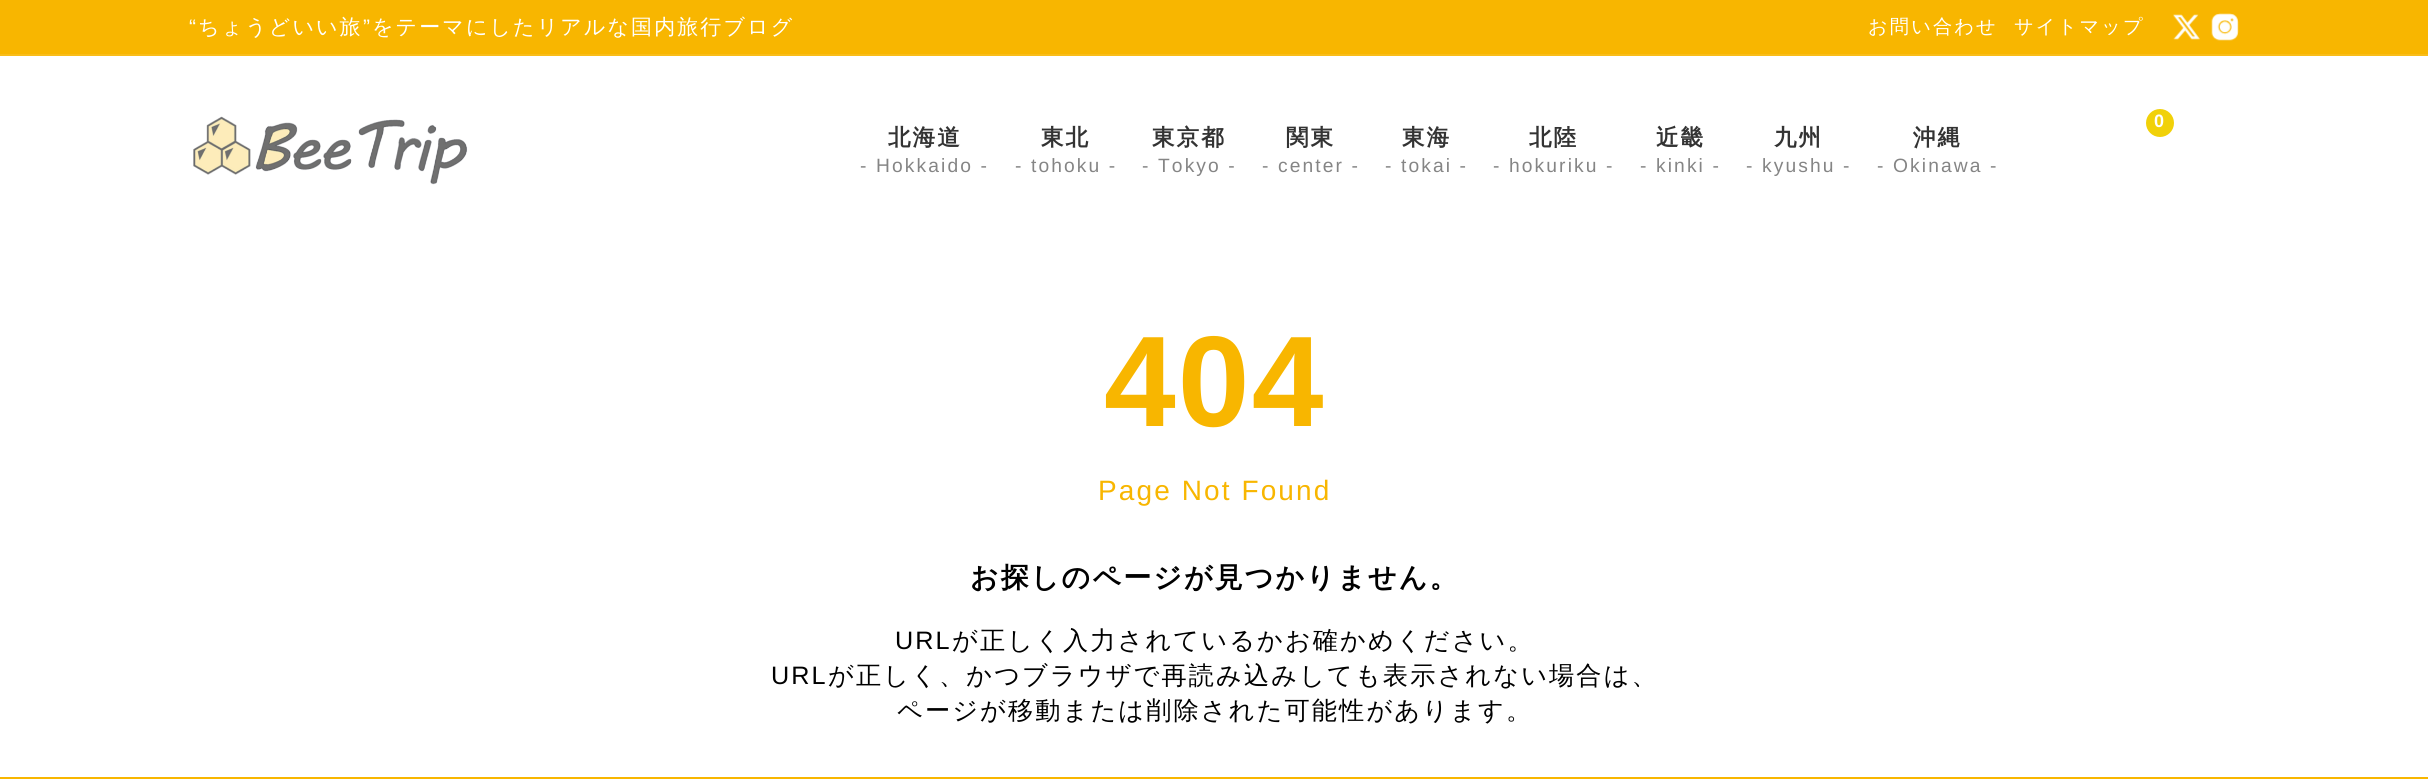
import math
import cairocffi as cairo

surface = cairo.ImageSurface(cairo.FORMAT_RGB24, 2428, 779)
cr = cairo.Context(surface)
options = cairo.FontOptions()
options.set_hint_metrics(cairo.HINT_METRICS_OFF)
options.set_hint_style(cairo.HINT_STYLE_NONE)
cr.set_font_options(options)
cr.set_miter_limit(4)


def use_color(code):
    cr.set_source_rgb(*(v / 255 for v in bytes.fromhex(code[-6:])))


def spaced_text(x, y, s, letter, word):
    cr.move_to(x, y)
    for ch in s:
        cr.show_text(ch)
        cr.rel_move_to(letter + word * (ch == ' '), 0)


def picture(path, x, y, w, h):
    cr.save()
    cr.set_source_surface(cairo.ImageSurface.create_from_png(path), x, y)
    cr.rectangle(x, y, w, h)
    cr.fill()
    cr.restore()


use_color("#ffffff")
cr.paint()
use_color("#f8b600")
cr.rectangle(0, 0, 2428, 54)
cr.fill()
use_color("#f9bd19")
cr.rectangle(0, 54, 2428, 2)
cr.fill()
cr.select_font_face("Liberation Sans")
cr.set_font_size(21)
use_color("#ffffff")
spaced_text(189, 34, "“", 2.1, 0)
cr.select_font_face("WenQuanYi Zen Hei Medium")
spaced_text(198, 34, "ちょうどいい旅", 2.1, 0)
cr.select_font_face("Liberation Sans")
spaced_text(363, 34, "”", 2.1, 0)
cr.select_font_face("WenQuanYi Zen Hei Medium")
spaced_text(372, 34, "をテーマにしたリアルな国内旅行ブログ", 2.1, 0)
cr.set_font_size(19.25)
spaced_text(1868, 33, "お問い合わせ", 2.1, 0)
spaced_text(2014, 33, "サイトマップ", 2.1, 0)
picture("img1.png", 2173, 14, 27, 26)
picture("img2.png", 2211, 13, 28, 28)
picture("img3.png", 193, 116, 275, 69)
cr.select_font_face("WenQuanYi Zen Hei", cairo.FONT_SLANT_NORMAL, cairo.FONT_WEIGHT_BOLD)
cr.set_font_size(22.5)
use_color("#333333")
spaced_text(888, 145, "北海道", 2.1, 0)
cr.select_font_face("Liberation Sans")
cr.set_font_size(19.25)
use_color("#858585")
spaced_text(860, 172, "- Hokkaido -", 2.1, 0)
cr.select_font_face("WenQuanYi Zen Hei", cairo.FONT_SLANT_NORMAL, cairo.FONT_WEIGHT_BOLD)
cr.set_font_size(22.5)
use_color("#333333")
spaced_text(1041, 145, "東北", 2.1, 0)
cr.select_font_face("Liberation Sans")
cr.set_font_size(19.25)
use_color("#858585")
spaced_text(1015, 172, "- tohoku -", 2.1, 0)
cr.select_font_face("WenQuanYi Zen Hei", cairo.FONT_SLANT_NORMAL, cairo.FONT_WEIGHT_BOLD)
cr.set_font_size(22.5)
use_color("#333333")
spaced_text(1152, 145, "東京都", 2.1, 0)
cr.select_font_face("Liberation Sans")
cr.set_font_size(19.25)
use_color("#858585")
spaced_text(1142, 172, "- Tokyo -", 2.1, 0)
cr.select_font_face("WenQuanYi Zen Hei", cairo.FONT_SLANT_NORMAL, cairo.FONT_WEIGHT_BOLD)
cr.set_font_size(22.5)
use_color("#333333")
spaced_text(1286, 145, "関東", 2.1, 0)
cr.select_font_face("Liberation Sans")
cr.set_font_size(19.25)
use_color("#858585")
spaced_text(1262, 172, "- center -", 2.1, 0)
cr.select_font_face("WenQuanYi Zen Hei", cairo.FONT_SLANT_NORMAL, cairo.FONT_WEIGHT_BOLD)
cr.set_font_size(22.5)
use_color("#333333")
spaced_text(1402, 145, "東海", 2.1, 0)
cr.select_font_face("Liberation Sans")
cr.set_font_size(19.25)
use_color("#858585")
spaced_text(1385, 172, "- tokai -", 2.1, 0)
cr.select_font_face("WenQuanYi Zen Hei", cairo.FONT_SLANT_NORMAL, cairo.FONT_WEIGHT_BOLD)
cr.set_font_size(22.5)
use_color("#333333")
spaced_text(1529, 145, "北陸", 2.1, 0)
cr.select_font_face("Liberation Sans")
cr.set_font_size(19.25)
use_color("#858585")
spaced_text(1493, 172, "- hokuriku -", 2.1, 0)
cr.select_font_face("WenQuanYi Zen Hei", cairo.FONT_SLANT_NORMAL, cairo.FONT_WEIGHT_BOLD)
cr.set_font_size(22.5)
use_color("#333333")
spaced_text(1656, 145, "近畿", 2.1, 0)
cr.select_font_face("Liberation Sans")
cr.set_font_size(19.25)
use_color("#858585")
spaced_text(1640, 172, "- kinki -", 2.1, 0)
cr.select_font_face("WenQuanYi Zen Hei", cairo.FONT_SLANT_NORMAL, cairo.FONT_WEIGHT_BOLD)
cr.set_font_size(22.5)
use_color("#333333")
spaced_text(1774, 145, "九州", 2.1, 0)
cr.select_font_face("Liberation Sans")
cr.set_font_size(19.25)
use_color("#858585")
spaced_text(1746, 172, "- kyushu -", 2.1, 0)
cr.select_font_face("WenQuanYi Zen Hei", cairo.FONT_SLANT_NORMAL, cairo.FONT_WEIGHT_BOLD)
cr.set_font_size(22.5)
use_color("#333333")
spaced_text(1913, 145, "沖縄", 2.1, 0)
cr.select_font_face("Liberation Sans")
cr.set_font_size(19.25)
use_color("#858585")
spaced_text(1877, 172, "- Okinawa -", 2.1, 0)
use_color("#f1d109")
cr.new_path()
cr.arc(2160, 123, 14, 0, 2 * math.pi)
cr.fill()
cr.select_font_face("Liberation Sans", cairo.FONT_SLANT_NORMAL, cairo.FONT_WEIGHT_BOLD)
cr.set_font_size(18)
use_color("#ffffff")
spaced_text(2154, 127, "0", -2, 0)
cr.set_font_size(129)
use_color("#f8b600")
spaced_text(1104, 426, "404", 2.1, 0)
cr.select_font_face("Liberation Sans")
cr.set_font_size(28)
spaced_text(1098, 500, "Page Not Found", 2.1, 0)
cr.select_font_face("WenQuanYi Zen Hei", cairo.FONT_SLANT_NORMAL, cairo.FONT_WEIGHT_BOLD)
use_color("#000000")
spaced_text(970, 587, "お探しのページが見つかりません。", 2.1, 0)
cr.select_font_face("Liberation Sans")
cr.set_font_size(25.2)
spaced_text(895, 649, "URL", 2.1, 0)
cr.select_font_face("WenQuanYi Zen Hei Medium")
spaced_text(952, 649, "が正しく入力されているかお確かめください。", 2.1, 0)
cr.select_font_face("Liberation Sans")
spaced_text(771, 684, "URL", 2.1, 0)
cr.select_font_face("WenQuanYi Zen Hei Medium")
spaced_text(828, 684, "が正しく、かつブラウザで再読み込みしても表示されない場合は、", 2.1, 0)
spaced_text(897, 719, "ページが移動または削除された可能性があります。", 2.1, 0)
use_color("#f8b600")
cr.rectangle(0, 777, 2428, 2)
cr.fill()
surface.write_to_png("result.png")
